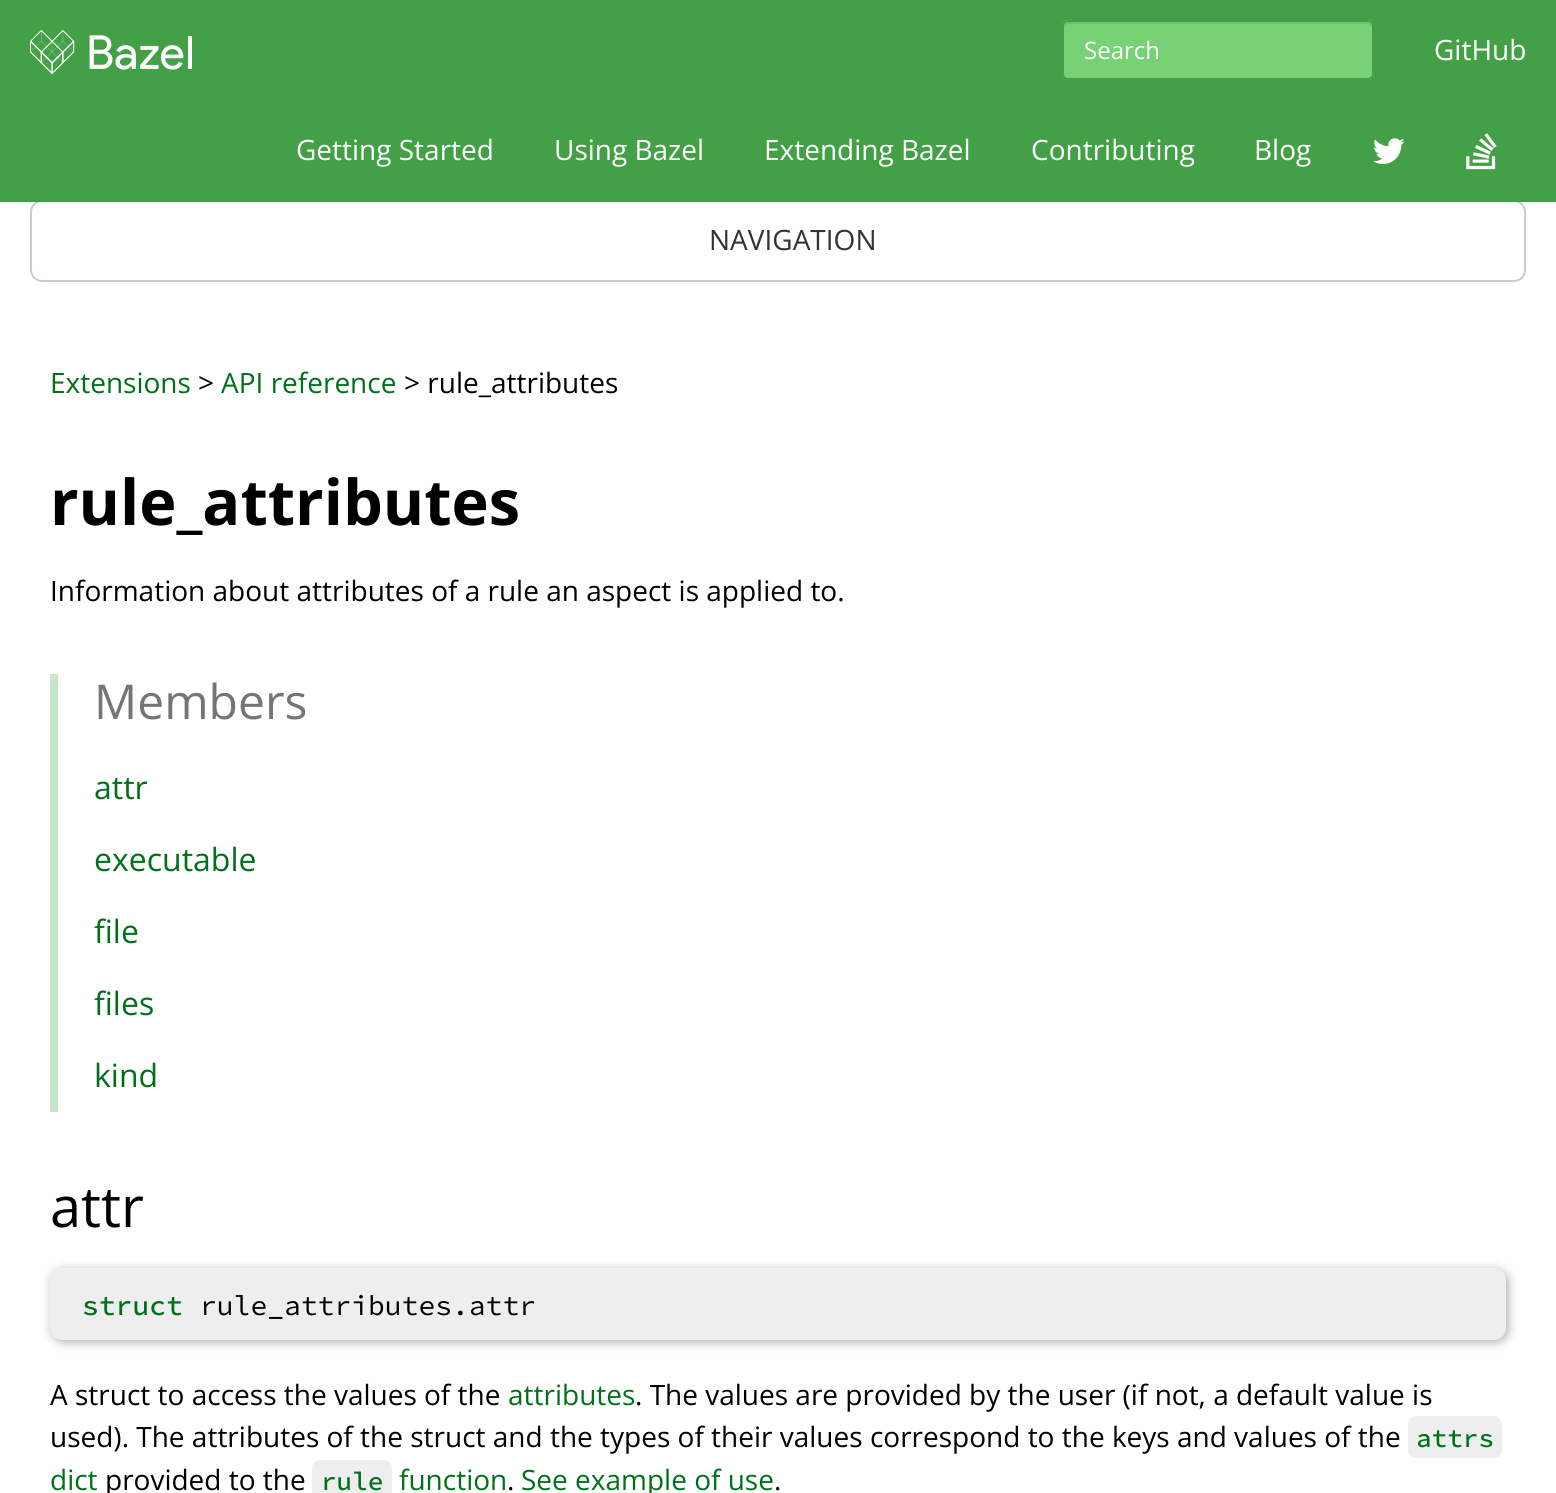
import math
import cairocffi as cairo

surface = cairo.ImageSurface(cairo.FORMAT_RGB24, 1556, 1493)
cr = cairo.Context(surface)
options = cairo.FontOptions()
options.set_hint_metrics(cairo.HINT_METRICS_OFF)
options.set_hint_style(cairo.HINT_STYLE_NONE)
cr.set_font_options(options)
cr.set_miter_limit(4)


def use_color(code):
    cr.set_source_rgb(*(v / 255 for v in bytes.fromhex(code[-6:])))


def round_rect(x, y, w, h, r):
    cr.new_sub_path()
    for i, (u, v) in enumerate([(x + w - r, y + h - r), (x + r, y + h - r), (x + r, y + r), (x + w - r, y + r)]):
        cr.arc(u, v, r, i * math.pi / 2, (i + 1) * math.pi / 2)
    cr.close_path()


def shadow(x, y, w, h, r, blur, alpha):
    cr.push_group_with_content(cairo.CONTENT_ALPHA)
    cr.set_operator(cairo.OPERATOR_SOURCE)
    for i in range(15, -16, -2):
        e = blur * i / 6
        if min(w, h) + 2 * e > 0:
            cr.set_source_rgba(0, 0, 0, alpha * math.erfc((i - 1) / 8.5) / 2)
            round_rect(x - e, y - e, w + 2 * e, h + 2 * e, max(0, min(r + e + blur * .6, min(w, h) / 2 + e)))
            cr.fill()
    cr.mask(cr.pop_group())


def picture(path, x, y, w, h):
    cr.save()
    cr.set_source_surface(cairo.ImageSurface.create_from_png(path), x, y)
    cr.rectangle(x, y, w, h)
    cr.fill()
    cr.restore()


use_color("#ffffff")
cr.paint()
round_rect(31, 201, 1494, 80, 11)
use_color("#cccccc")
cr.stroke()
use_color("#43a047")
cr.rectangle(0, 0, 1556, 202)
cr.fill()
picture("img1.png", 30, 30, 162, 44)
use_color("#76d275")
round_rect(1062, 20, 312, 60, 6)
cr.fill()
use_color("#6dc26c")
cr.new_path()
cr.move_to(1068, 24)
cr.line_to(1368, 24)
cr.curve_to(1370, 24, 1372, 26, 1372, 28)
cr.line_to(1372, 26)
cr.curve_to(1372, 24, 1370, 22, 1368, 22)
cr.line_to(1068, 22)
cr.curve_to(1066, 22, 1064, 24, 1064, 26)
cr.line_to(1064, 28)
cr.curve_to(1064, 26, 1066, 24, 1068, 24)
cr.close_path()
cr.fill()
round_rect(1063, 21, 310, 58, 5)
use_color("#43a047")
cr.stroke()
cr.select_font_face("Open Sans")
cr.set_font_size(24)
use_color("#ffffff")
cr.move_to(1084, 59)
cr.show_text("Search")
cr.set_font_size(28)
cr.move_to(1434, 60)
cr.show_text("GitHub")
cr.move_to(296, 160)
cr.show_text("Getting Started")
cr.move_to(554, 160)
cr.show_text("Using Bazel")
cr.move_to(764, 160)
cr.show_text("Extending Bazel")
cr.move_to(1031, 160)
cr.show_text("Contributing")
cr.move_to(1254, 160)
cr.show_text("Blog")
picture("img2.png", 1373, 138, 32, 26)
picture("img3.png", 1466, 133, 31, 37)
use_color("#333333")
cr.move_to(709, 250)
cr.show_text("NAVIGATION")
use_color("#00701a")
cr.move_to(50, 393)
cr.show_text("Extensions")
use_color("#000000")
cr.move_to(198, 393)
cr.show_text(">")
use_color("#00701a")
cr.move_to(221, 393)
cr.show_text("API reference")
use_color("#000000")
cr.move_to(404, 393)
cr.show_text("> rule_attributes")
cr.select_font_face("Open Sans", cairo.FONT_SLANT_NORMAL, cairo.FONT_WEIGHT_BOLD)
cr.set_font_size(63)
cr.move_to(50, 525)
cr.show_text("rule_attributes")
cr.select_font_face("Open Sans")
cr.set_font_size(28)
cr.move_to(50, 601)
cr.show_text("Information about attributes of a rule an aspect is applied to.")
use_color("#c8e6c9")
cr.rectangle(50, 674, 8, 438)
cr.fill()
cr.set_font_size(48)
use_color("#757575")
cr.move_to(94, 719)
cr.show_text("Members")
cr.set_font_size(32)
use_color("#00701a")
cr.move_to(94, 799)
cr.show_text("attr")
cr.move_to(94, 871)
cr.show_text("executable")
cr.move_to(94, 943)
cr.show_text("file")
cr.move_to(94, 1015)
cr.show_text("files")
cr.move_to(94, 1087)
cr.show_text("kind")
cr.set_font_size(56)
use_color("#000000")
cr.move_to(50, 1227)
cr.show_text("attr")
use_color("#aaaaaa")
shadow(52, 1270, 1456, 72, 12, 5, 1)
use_color("#eeeeee")
round_rect(50, 1268, 1456, 72, 12)
cr.fill()
cr.select_font_face("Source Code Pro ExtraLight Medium")
cr.set_font_size(28)
use_color("#00701a")
cr.move_to(82, 1315)
cr.show_text("struct")
cr.select_font_face("Source Code Pro ExtraLight")
use_color("#000000")
cr.move_to(200, 1315)
cr.show_text("rule_attributes.attr")
cr.select_font_face("Open Sans")
cr.move_to(50, 1405)
cr.show_text("A struct to access the values of the")
use_color("#00701a")
cr.move_to(508, 1405)
cr.show_text("attributes")
use_color("#000000")
cr.move_to(635, 1405)
cr.show_text(". The values are provided by the user (if not, a default value is")
cr.move_to(50, 1447)
cr.show_text("used). The attributes of the struct and the types of their values correspond to the keys and values of the")
use_color("#eeeeee")
round_rect(1408, 1416, 94, 42, 8)
cr.fill()
cr.select_font_face("Source Code Pro ExtraLight Medium")
cr.set_font_size(26)
use_color("#00701a")
cr.move_to(1416, 1447)
cr.show_text("attrs")
cr.select_font_face("Open Sans")
cr.set_font_size(28)
cr.move_to(50, 1490)
cr.show_text("dict")
use_color("#000000")
cr.move_to(105, 1490)
cr.show_text("provided to the")
use_color("#eeeeee")
round_rect(312, 1460, 80, 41, 8)
cr.fill()
cr.select_font_face("Source Code Pro ExtraLight Medium")
cr.set_font_size(26)
use_color("#00701a")
cr.move_to(321, 1490)
cr.show_text("rule")
cr.select_font_face("Open Sans")
cr.set_font_size(28)
cr.move_to(399, 1490)
cr.show_text("function")
use_color("#000000")
cr.move_to(507, 1490)
cr.show_text(".")
use_color("#00701a")
cr.move_to(521, 1490)
cr.show_text("See example of use")
use_color("#000000")
cr.move_to(774, 1490)
cr.show_text(".")
surface.write_to_png("result.png")
